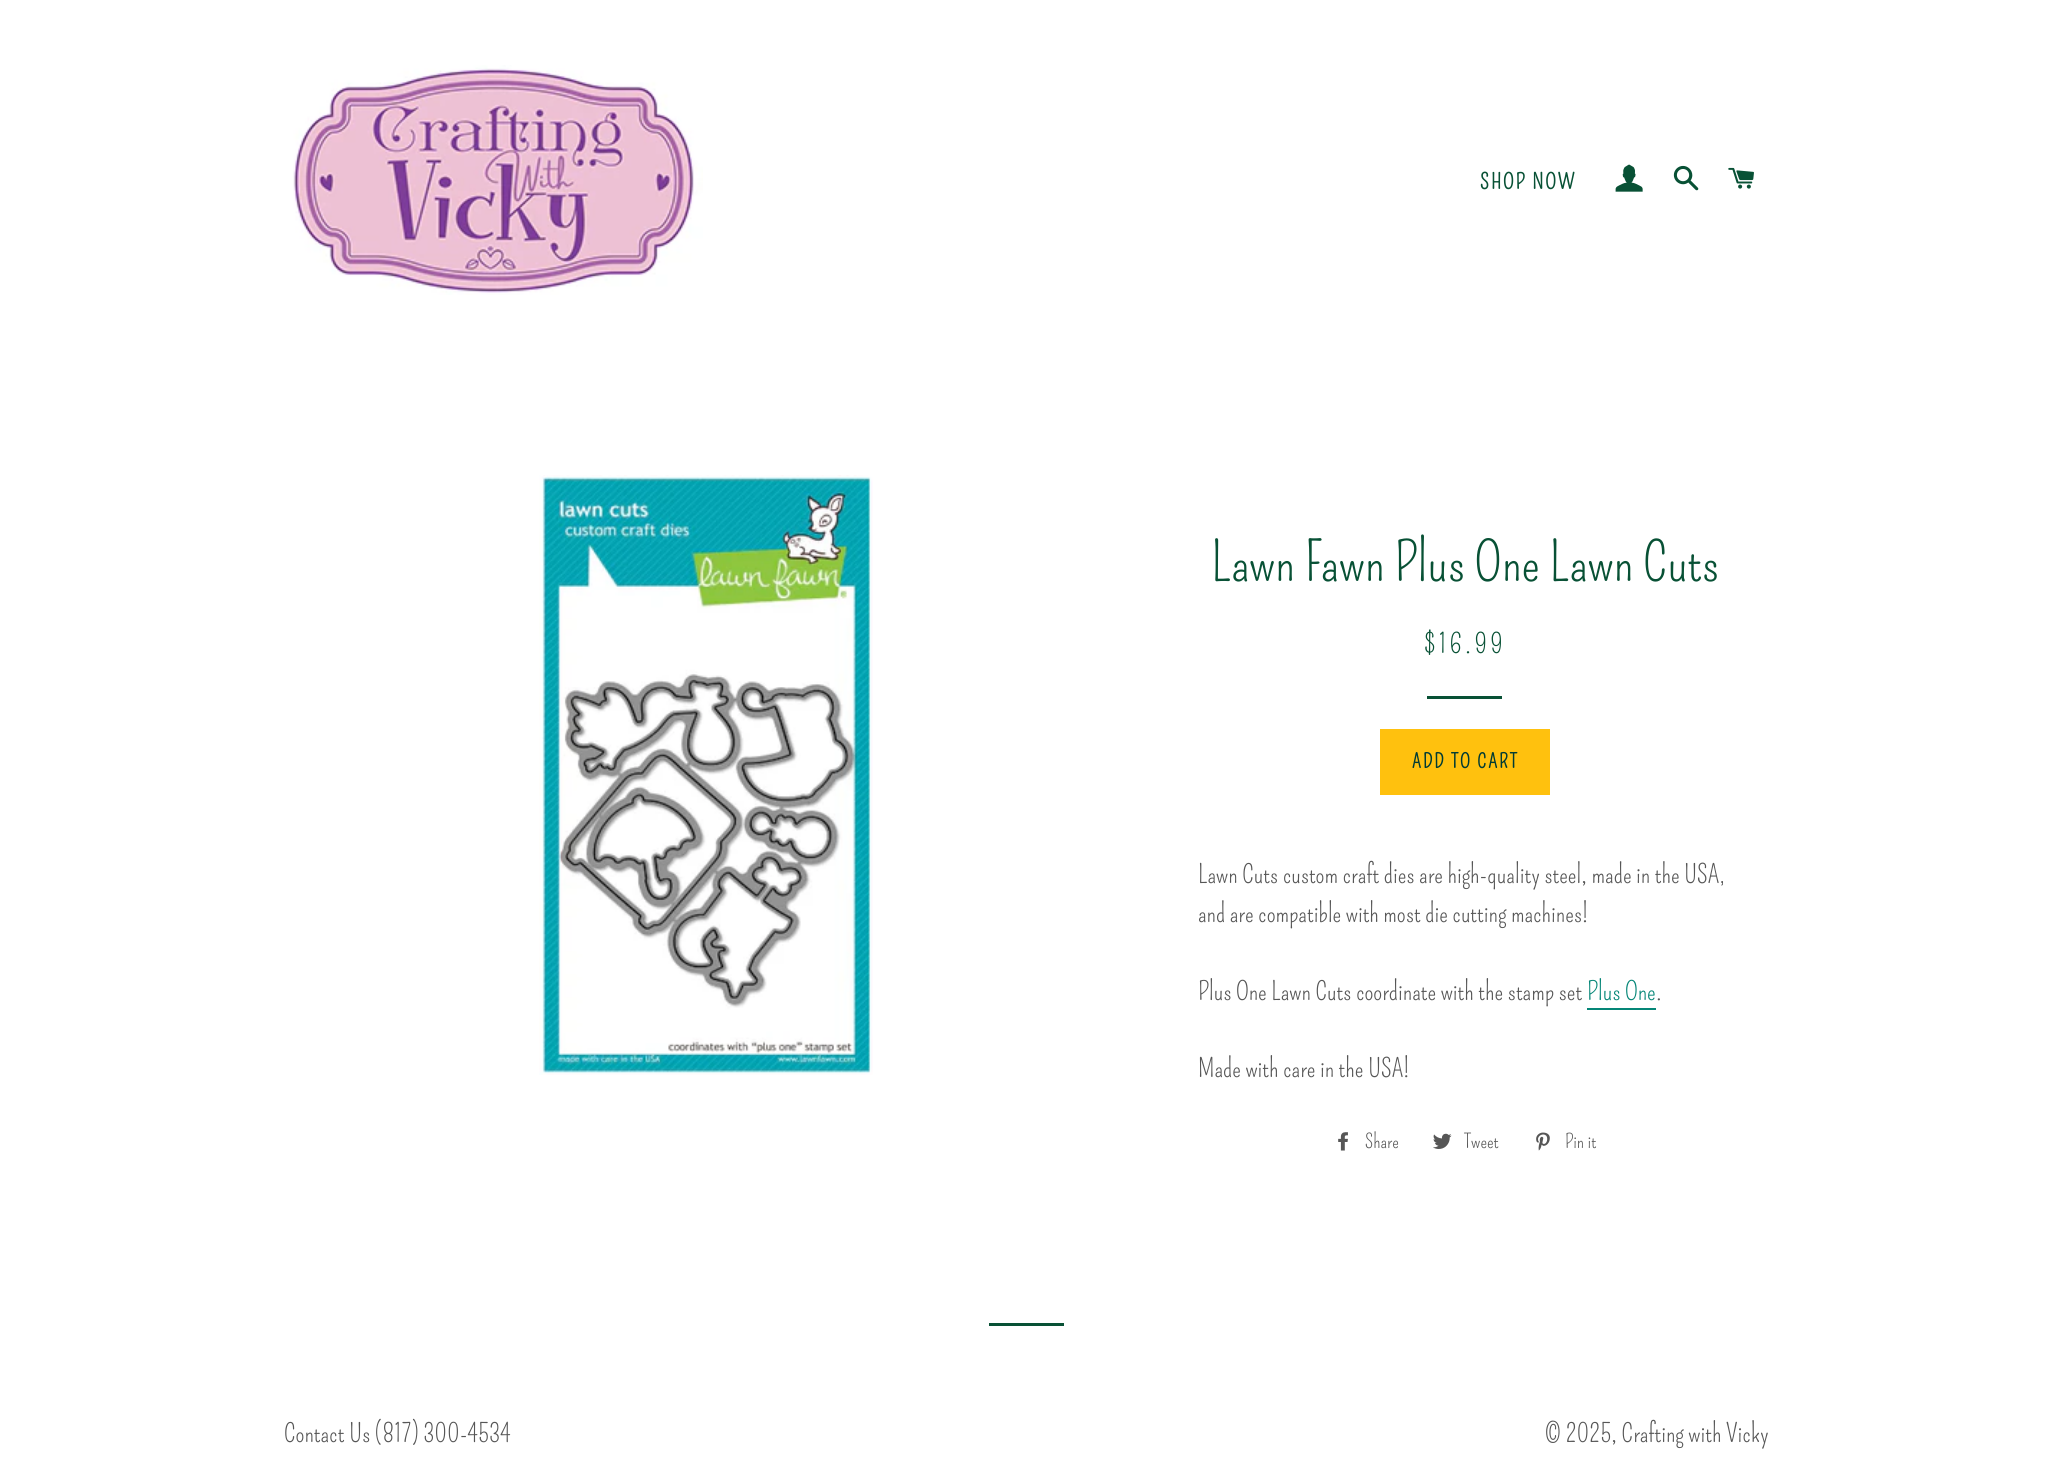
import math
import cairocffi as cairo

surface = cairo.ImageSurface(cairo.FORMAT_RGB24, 2051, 1458)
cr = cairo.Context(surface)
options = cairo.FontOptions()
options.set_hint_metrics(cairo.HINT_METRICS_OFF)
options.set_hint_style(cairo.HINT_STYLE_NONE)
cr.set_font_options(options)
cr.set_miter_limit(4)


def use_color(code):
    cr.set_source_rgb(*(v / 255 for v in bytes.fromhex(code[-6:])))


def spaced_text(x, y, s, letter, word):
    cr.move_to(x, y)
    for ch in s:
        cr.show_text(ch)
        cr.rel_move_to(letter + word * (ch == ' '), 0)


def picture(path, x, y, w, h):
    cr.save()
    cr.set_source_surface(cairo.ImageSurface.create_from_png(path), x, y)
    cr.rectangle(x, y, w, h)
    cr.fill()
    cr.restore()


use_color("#ffffff")
cr.paint()
picture("img1.png", 293, 65, 410, 230)
cr.select_font_face("Pompiere", cairo.FONT_SLANT_NORMAL, cairo.FONT_WEIGHT_BOLD)
cr.set_font_size(21)
use_color("#085135")
spaced_text(1480, 189, "SHOP NOW", 2, 0)
picture("img2.png", 1615, 164, 28, 28)
picture("img3.png", 1673, 165, 26, 26)
picture("img4.png", 1728, 167, 26, 22)
picture("img5.png", 539, 475, 334, 600)
cr.select_font_face("Pompiere")
cr.set_font_size(54)
cr.move_to(1211, 581)
cr.show_text("Lawn Fawn Plus One Lawn Cuts")
cr.set_font_size(27)
spaced_text(1424, 653, "$16.99", 2.75, 0)
cr.rectangle(1427, 696, 75, 3)
cr.fill()
use_color("#ffc10e")
cr.rectangle(1380, 729, 170, 66)
cr.fill()
cr.select_font_face("Pompiere", cairo.FONT_SLANT_NORMAL, cairo.FONT_WEIGHT_BOLD)
cr.set_font_size(19.5)
use_color("#003b34")
spaced_text(1412, 768, "ADD TO CART", 2, 0)
cr.select_font_face("Pompiere")
cr.set_font_size(25.5)
use_color("#565656")
cr.move_to(1198, 883)
cr.show_text("Lawn Cuts custom craft dies are high-quality steel, made in the USA,")
cr.move_to(1198, 922)
cr.show_text("and are compatible with most die cutting machines!")
cr.move_to(1198, 1000)
cr.show_text("Plus One Lawn Cuts coordinate with the stamp set")
use_color("#058677")
cr.move_to(1587, 1000)
cr.show_text("Plus One")
cr.rectangle(1587, 1008, 69, 2)
cr.fill()
use_color("#565656")
cr.move_to(1656, 1000)
cr.show_text(".")
cr.move_to(1198, 1077)
cr.show_text("Made with care in the USA!")
picture("img6.png", 1338, 1132, 10, 19)
cr.set_font_size(19.5)
cr.move_to(1365, 1148)
cr.show_text("Share")
picture("img7.png", 1433, 1133, 19, 16)
cr.move_to(1464, 1148)
cr.show_text("Tweet")
picture("img8.png", 1536, 1132, 14, 19)
cr.move_to(1565, 1148)
cr.show_text("Pin it")
use_color("#085135")
cr.rectangle(989, 1323, 75, 3)
cr.fill()
cr.set_font_size(25.5)
use_color("#565656")
cr.move_to(284, 1442)
cr.show_text("Contact Us (817) 300-4534")
cr.move_to(1545, 1442)
cr.show_text("© 2025, Crafting with Vicky")
surface.write_to_png("result.png")
